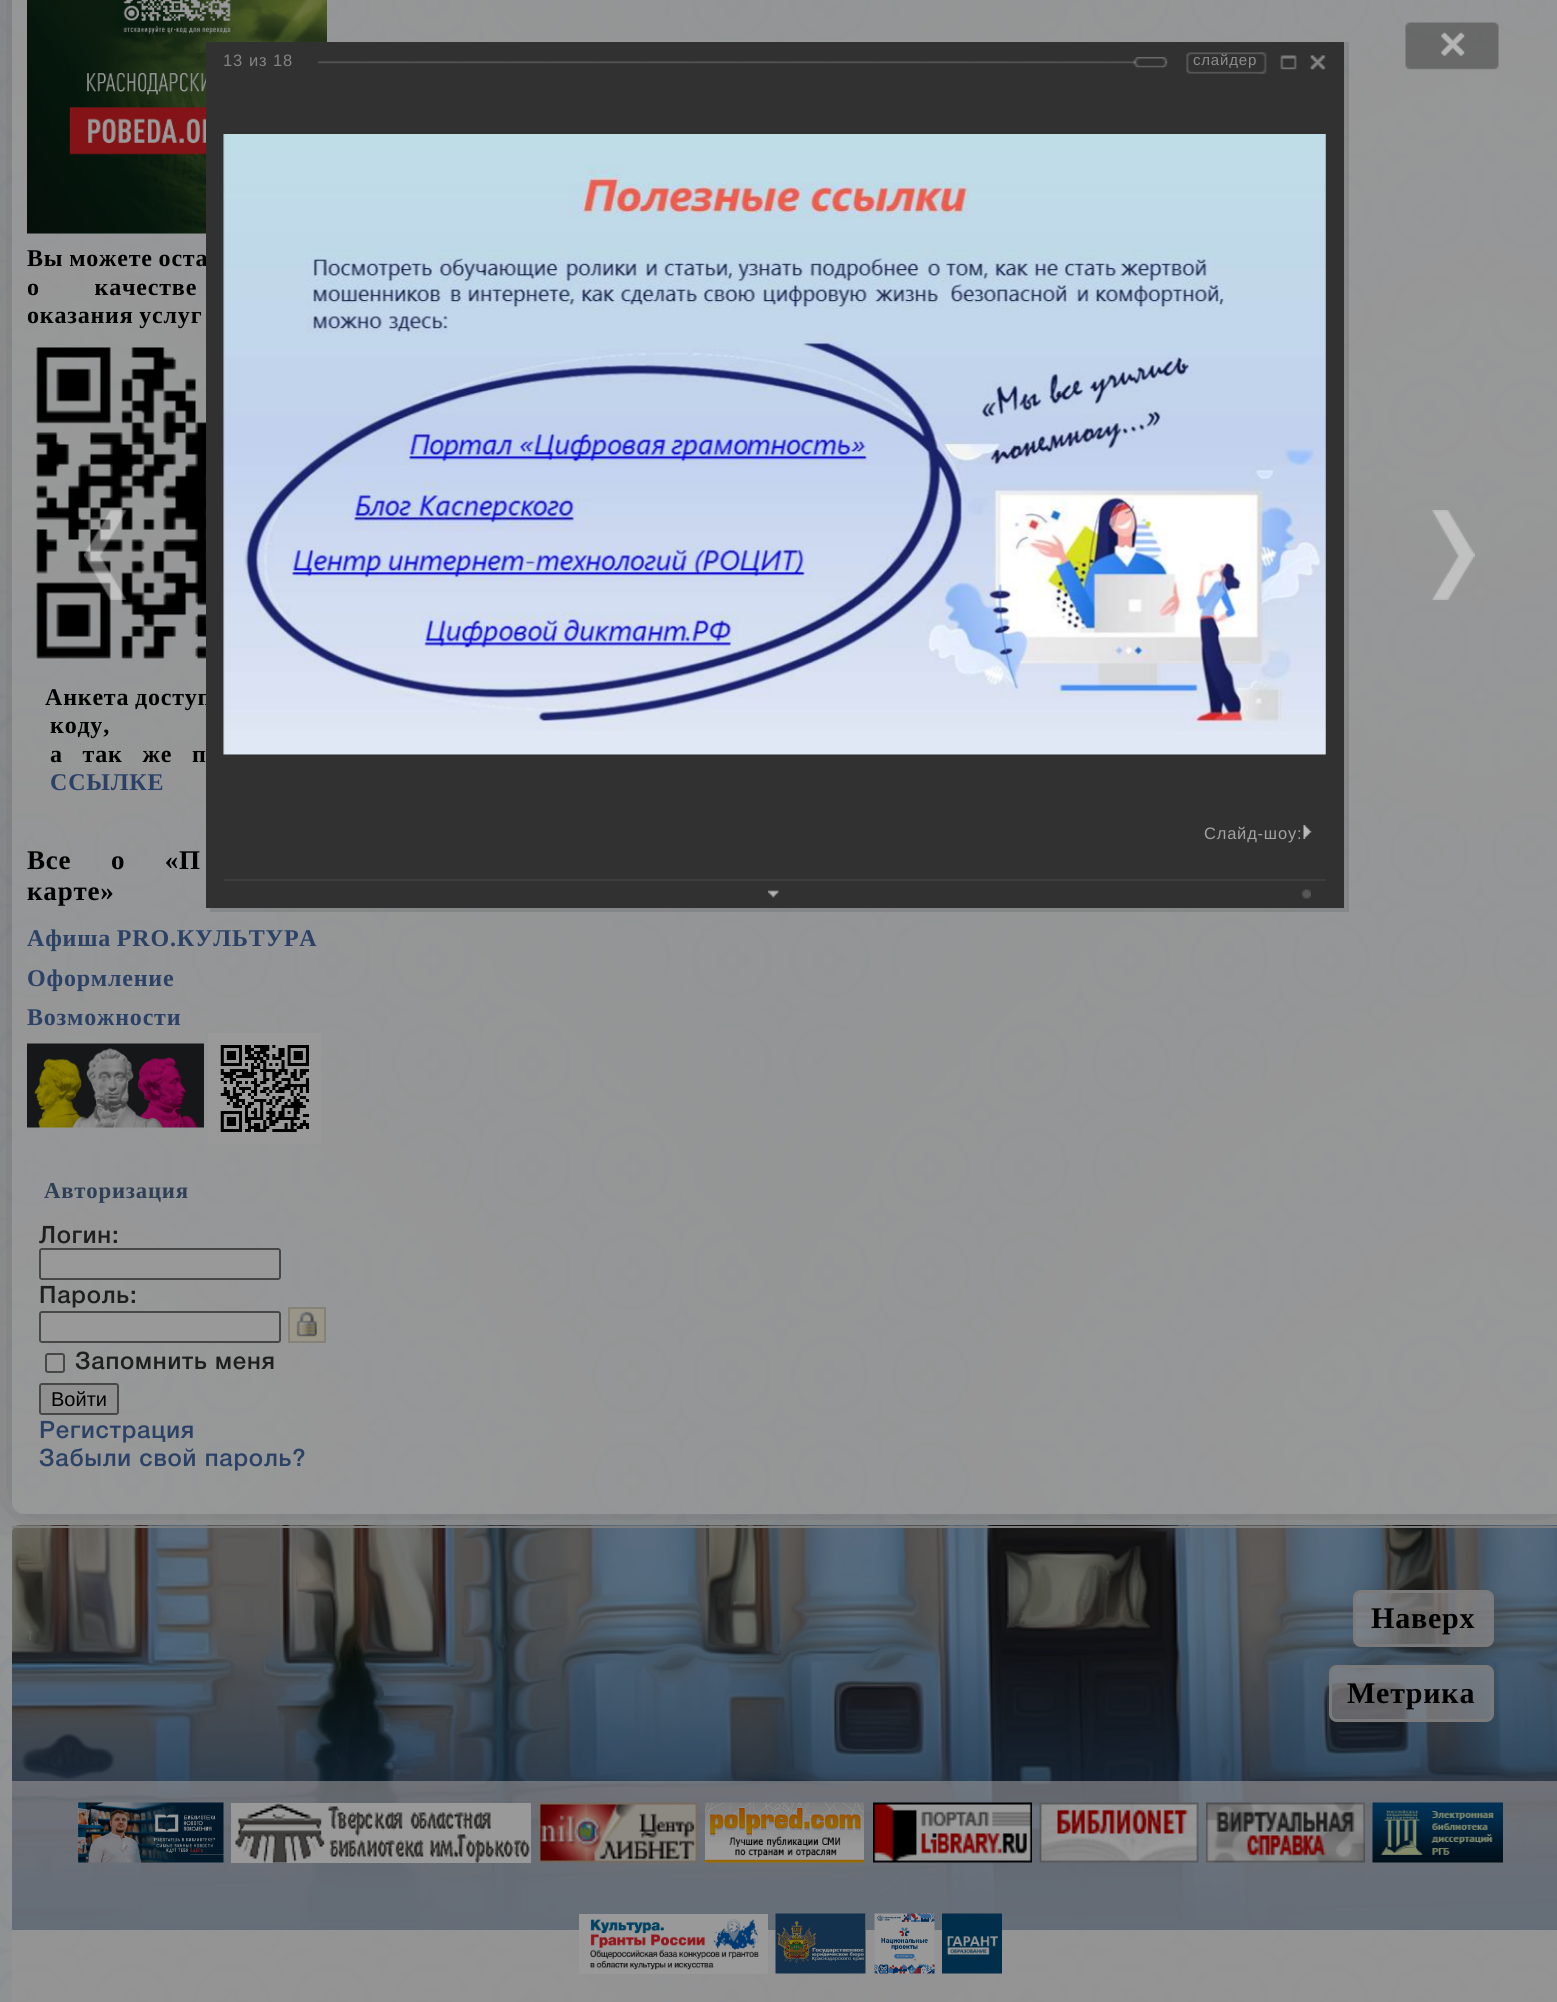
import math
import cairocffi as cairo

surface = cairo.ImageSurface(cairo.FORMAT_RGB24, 1557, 2002)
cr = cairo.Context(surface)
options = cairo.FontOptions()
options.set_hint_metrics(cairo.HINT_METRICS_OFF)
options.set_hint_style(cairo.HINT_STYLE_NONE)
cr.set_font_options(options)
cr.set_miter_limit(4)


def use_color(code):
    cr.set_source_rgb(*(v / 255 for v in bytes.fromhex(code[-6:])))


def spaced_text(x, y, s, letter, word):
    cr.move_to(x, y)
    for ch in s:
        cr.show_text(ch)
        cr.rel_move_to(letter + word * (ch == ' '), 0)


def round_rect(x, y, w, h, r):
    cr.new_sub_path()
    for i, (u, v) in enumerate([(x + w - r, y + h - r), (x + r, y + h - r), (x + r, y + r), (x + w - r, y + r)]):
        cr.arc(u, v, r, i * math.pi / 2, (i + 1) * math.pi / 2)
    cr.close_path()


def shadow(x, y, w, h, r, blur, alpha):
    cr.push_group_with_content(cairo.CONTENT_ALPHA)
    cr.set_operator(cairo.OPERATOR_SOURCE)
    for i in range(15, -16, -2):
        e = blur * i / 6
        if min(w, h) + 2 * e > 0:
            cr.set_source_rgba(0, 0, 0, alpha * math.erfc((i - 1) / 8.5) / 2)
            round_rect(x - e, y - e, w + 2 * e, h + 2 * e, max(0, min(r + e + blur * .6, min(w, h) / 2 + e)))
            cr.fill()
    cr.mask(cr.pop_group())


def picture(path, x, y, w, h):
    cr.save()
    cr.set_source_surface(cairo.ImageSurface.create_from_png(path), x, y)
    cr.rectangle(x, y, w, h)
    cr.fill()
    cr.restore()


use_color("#ffffff")
cr.paint()
picture("img1.png", 0, 0, 1557, 2002)
cr.save()
cr.set_fill_rule(cairo.FILL_RULE_EVEN_ODD)
cr.new_path()
cr.move_to(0, 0)
cr.line_to(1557, 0)
cr.line_to(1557, 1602)
cr.line_to(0, 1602)
cr.close_path()
cr.move_to(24, -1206)
cr.line_to(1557, -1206)
cr.curve_to(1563.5, -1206, 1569, -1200.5, 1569, -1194)
cr.line_to(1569, 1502)
cr.curve_to(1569, 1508.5, 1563.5, 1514, 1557, 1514)
cr.line_to(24, 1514)
cr.curve_to(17.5, 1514, 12, 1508.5, 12, 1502)
cr.line_to(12, -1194)
cr.curve_to(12, -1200.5, 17.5, -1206, 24, -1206)
cr.close_path()
cr.clip()
use_color("#000000")
shadow(11, -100, 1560, 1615, 14, 28.5, 0.2)
cr.restore()
cr.set_source_rgba(0.6, 0.6, 0.6, 0.6)
round_rect(12, -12, 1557, 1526, 12)
cr.fill()
picture("img2.png", 27, 0, 300, 234)
cr.select_font_face("Liberation Serif", cairo.FONT_SLANT_NORMAL, cairo.FONT_WEIGHT_BOLD)
cr.set_font_size(24)
use_color("#000000")
spaced_text(27, 266, "Вы можете оста", 0.8, -1)
spaced_text(27, 295, "о качестве", 0.8, 48)
spaced_text(27, 323, "оказания услуг", 0.8, -1)
picture("img3.png", 36, 347, 170, 312)
spaced_text(45, 705, "Анкета доступ", 0.8, -1)
spaced_text(50, 733, "коду,", 0.8, 0)
spaced_text(50, 762, "а так же п", 0.8, 13)
use_color("#2b4166")
spaced_text(50, 790, "ССЫЛКЕ", 0.8, 0)
cr.set_font_size(27)
use_color("#000000")
spaced_text(27, 869, "Все о «П", 0.8, 32)
spaced_text(27, 900, "карте»", 0.8, 0)
cr.set_font_size(24)
use_color("#2b4166")
spaced_text(27, 946, "Афиша PRO.КУЛЬТУРА", 0.8, -1)
spaced_text(27, 986, "Оформление", 0.8, 0)
spaced_text(27, 1025, "Возможности", 0.8, 0)
picture("img4.png", 27, 1043, 177, 85)
picture("img5.png", 208, 1033, 113, 111)
cr.set_font_size(22.75)
use_color("#2e3f56")
spaced_text(44, 1198, "Авторизация", 0.8, 0)
cr.select_font_face("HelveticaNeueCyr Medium")
cr.set_font_size(24)
use_color("#1f1f1f")
spaced_text(39, 1243, "Логин:", 0.8, 0)
use_color("#999999")
round_rect(40, 1249, 240, 30, 2)
cr.fill_preserve()
use_color("#474747")
cr.stroke()
use_color("#1f1f1f")
spaced_text(39, 1303, "Пароль:", 0.8, 0)
use_color("#999999")
round_rect(40, 1312, 240, 30, 2)
cr.fill_preserve()
use_color("#474747")
cr.stroke()
use_color("#999688")
cr.rectangle(289, 1308, 36, 34)
cr.fill_preserve()
use_color("#858378")
cr.stroke()
picture("img6.png", 296, 1311, 21, 26)
use_color("#999999")
round_rect(46, 1354, 18, 18, 2)
cr.fill_preserve()
use_color("#474747")
cr.stroke()
use_color("#1f1f1f")
spaced_text(75, 1369, "Запомнить меня", 0.8, 0)
use_color("#8f8f8f")
round_rect(40, 1384, 78, 30, 2)
cr.fill_preserve()
use_color("#474747")
cr.stroke()
cr.select_font_face("Liberation Sans")
cr.set_font_size(20)
use_color("#000000")
cr.move_to(51, 1406)
cr.show_text("Войти")
cr.select_font_face("HelveticaNeueCyr Medium")
cr.set_font_size(24)
use_color("#2b4166")
spaced_text(39, 1438, "Регистрация", 0.8, 0)
spaced_text(39, 1466, "Забыли свой пароль?", 0.8, 0)
picture("img7.png", 84, 510, 42, 90)
cr.set_source_rgba(0, 0, 0, 0.1)
cr.rectangle(210, 42, 1139, 870)
cr.fill()
use_color("#313131")
cr.rectangle(206, 42, 1138, 866)
cr.fill()
cr.select_font_face("Liberation Sans")
cr.set_font_size(16.5)
use_color("#838383")
spaced_text(223, 66, "13", 0.8, 0)
spaced_text(249, 66, "из", 0.8, 0)
spaced_text(273, 66, "18", 0.8, 0)
picture("img8.png", 317, 61, 851, 3)
picture("img9.png", 1133, 57, 35, 11)
picture("img10.png", 1186, 52, 81, 22)
cr.set_font_size(15)
use_color("#8c8c8c")
spaced_text(1193, 65, "слайдер", 0.8, 0)
picture("img11.png", 1258, 52, 9, 22)
picture("img12.png", 1280, 55, 17, 15)
picture("img13.png", 1310, 55, 16, 15)
picture("img14.png", 223, 134, 1103, 621)
use_color("#3d3d3d")
cr.rectangle(224, 879, 1102, 2)
cr.fill()
cr.set_font_size(16.5)
use_color("#a2a2a2")
spaced_text(1204, 839, "Слайд-шоу:", 0.8, 0)
picture("img15.png", 1303, 825, 9, 14)
picture("img16.png", 768, 890, 11, 8)
picture("img17.png", 1302, 889, 9, 10)
picture("img18.png", 1405, 22, 94, 48)
picture("img19.png", 1432, 510, 43, 90)
picture("img20.png", 12, 1525, 1545, 405)
use_color("#7d7d7d")
cr.rectangle(12, 1526, 1545, 2)
cr.fill()
cr.set_source_rgba(0.6, 0.588, 0.588, 0.6)
round_rect(1354.5, 1591.5, 138, 54, 6.5)
cr.fill_preserve()
use_color("#7a7a7a")
cr.set_line_width(3)
cr.stroke()
cr.select_font_face("Liberation Serif", cairo.FONT_SLANT_NORMAL, cairo.FONT_WEIGHT_BOLD)
cr.set_font_size(30)
use_color("#000000")
spaced_text(1371, 1628, "Наверх", 0.8, 0)
cr.set_source_rgba(0.6, 0.588, 0.588, 0.6)
round_rect(1330.5, 1666.5, 162, 54, 6.5)
cr.fill_preserve()
use_color("#7a7a7a")
cr.stroke()
use_color("#000000")
spaced_text(1347, 1703, "Метрика", 0.8, 0)
cr.set_source_rgba(0.6, 0.588, 0.588, 0.6)
cr.rectangle(12, 1781, 1545, 221)
cr.fill()
picture("img21.png", 78, 1802, 146, 61)
use_color("#999999")
cr.rectangle(231, 1803, 300, 60)
cr.fill()
picture("img22.png", 235, 1802, 295, 61)
picture("img23.png", 538, 1802, 160, 61)
picture("img24.png", 705, 1802, 159, 61)
picture("img25.png", 873, 1802, 159, 61)
picture("img26.png", 1039, 1802, 160, 61)
picture("img27.png", 1206, 1802, 159, 61)
picture("img28.png", 1372, 1802, 131, 61)
cr.rectangle(579, 1914, 189, 60)
cr.fill()
cr.rectangle(776, 1914, 90, 60)
cr.fill()
picture("img29.png", 775, 1913, 91, 61)
picture("img30.png", 874, 1913, 61, 61)
picture("img31.png", 942, 1913, 60, 61)
picture("img32.png", 590, 1918, 169, 52)
surface.write_to_png("result.png")
